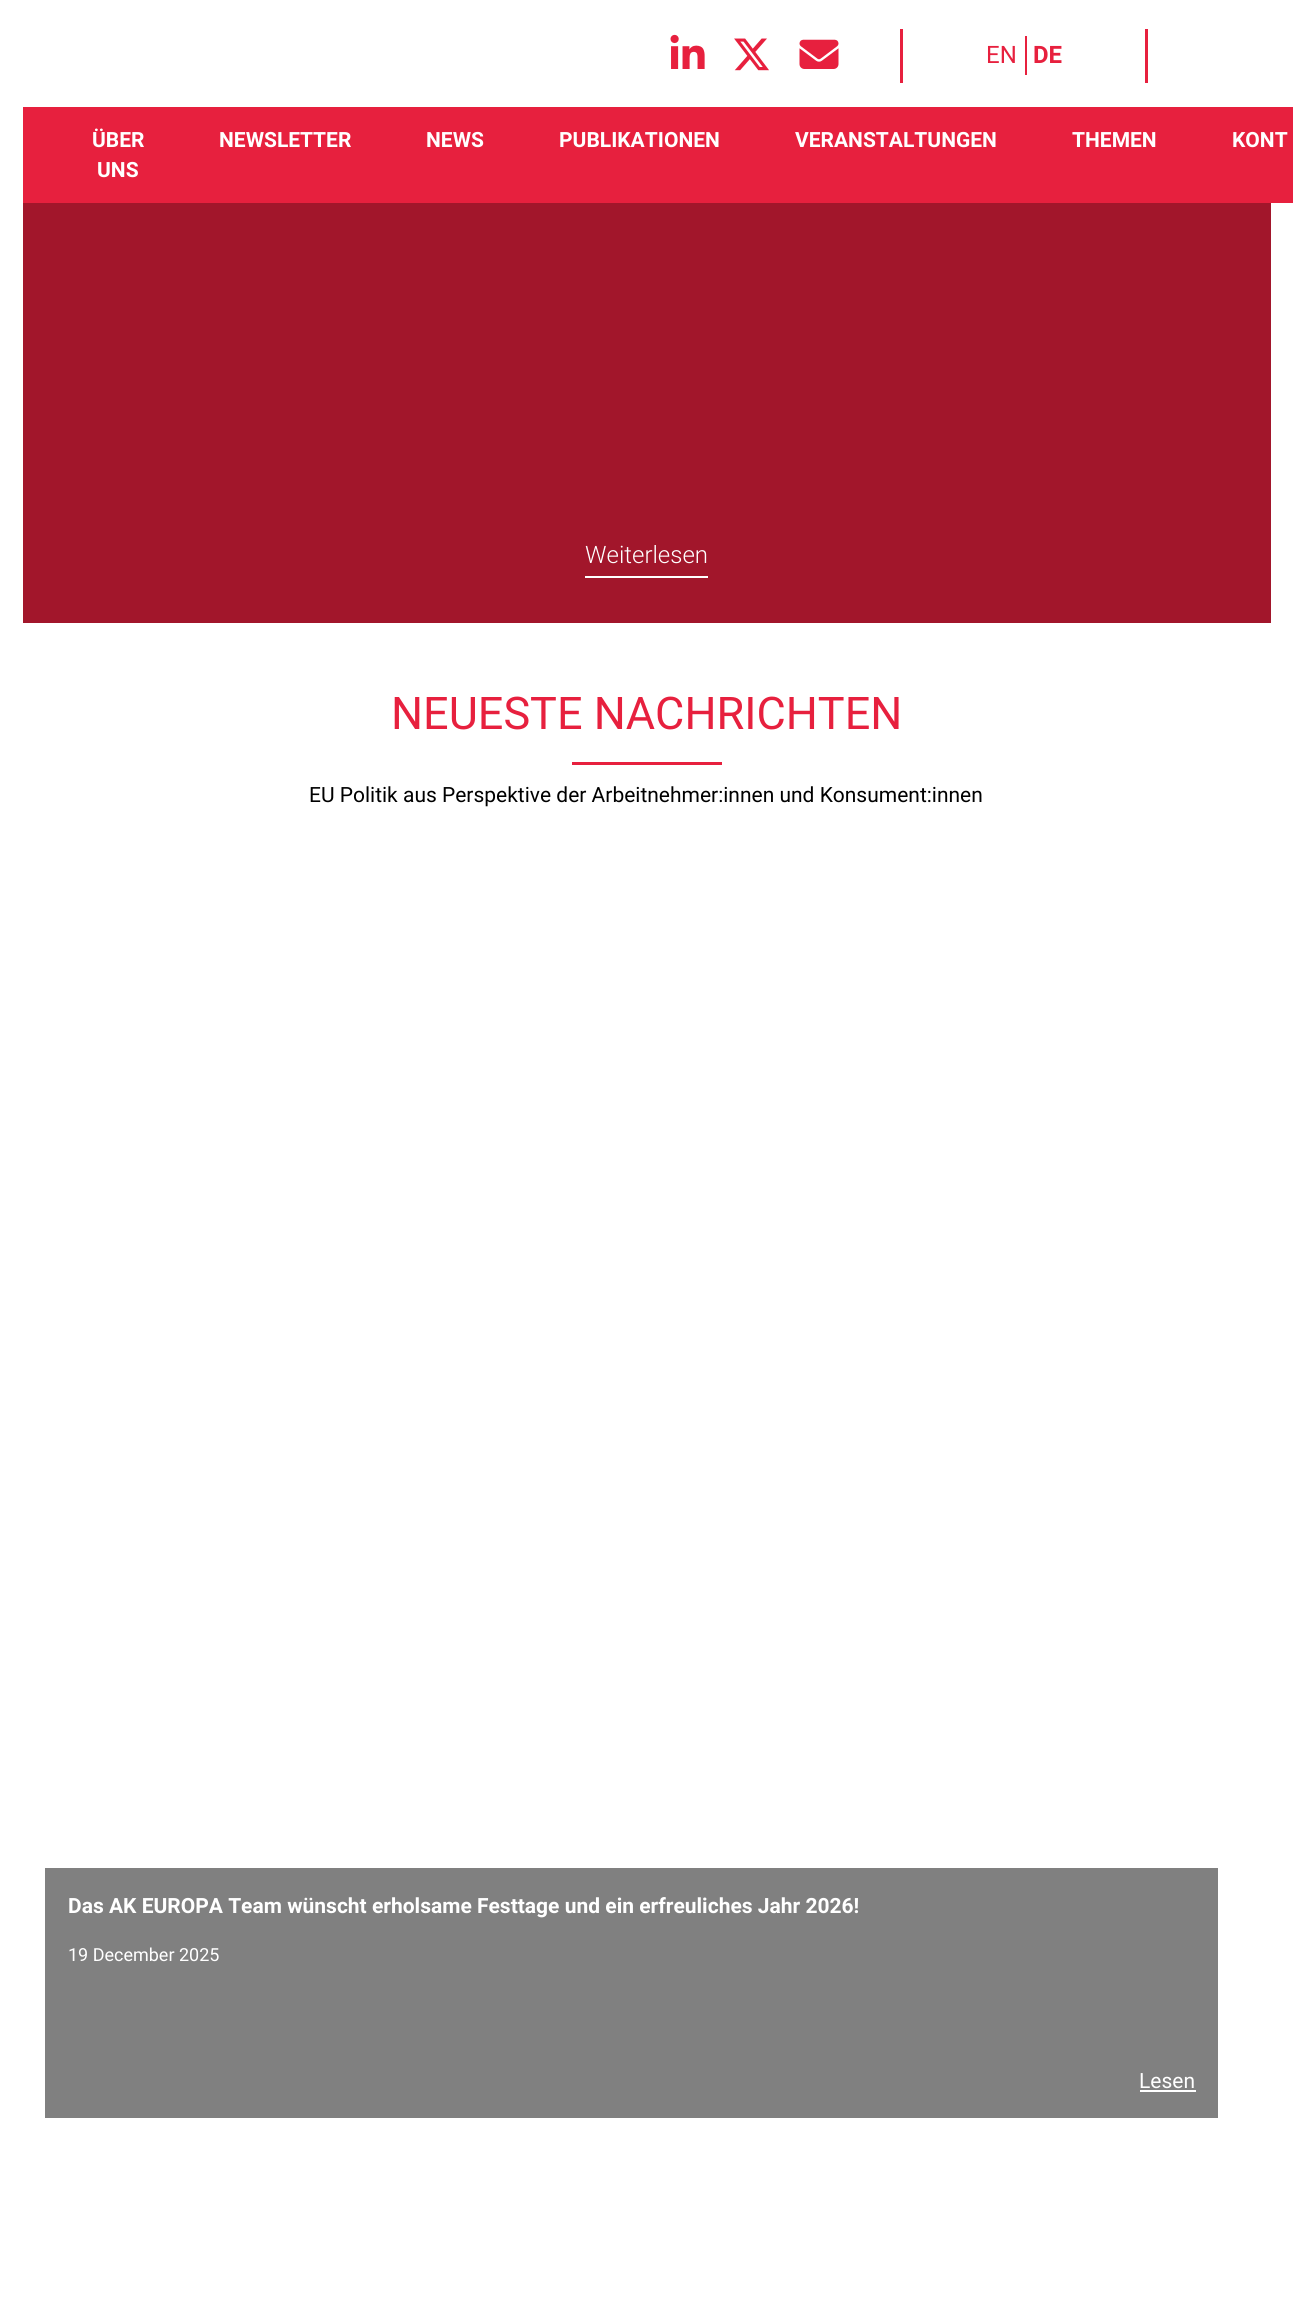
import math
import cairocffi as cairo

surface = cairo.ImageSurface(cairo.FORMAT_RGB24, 1293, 2310)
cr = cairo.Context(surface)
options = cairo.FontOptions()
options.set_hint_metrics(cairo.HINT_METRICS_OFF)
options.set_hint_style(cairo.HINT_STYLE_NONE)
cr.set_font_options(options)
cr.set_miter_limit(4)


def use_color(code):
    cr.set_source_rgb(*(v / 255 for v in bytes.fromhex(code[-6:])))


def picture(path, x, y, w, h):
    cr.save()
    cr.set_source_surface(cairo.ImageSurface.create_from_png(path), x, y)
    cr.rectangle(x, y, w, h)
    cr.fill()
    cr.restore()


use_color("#ffffff")
cr.paint()
picture("img1.png", 670, 34, 35, 35)
picture("img2.png", 734, 38, 35, 33)
picture("img3.png", 799, 39, 40, 30)
use_color("#e7203e")
cr.rectangle(1145, 29, 3, 54)
cr.fill()
cr.rectangle(900, 29, 3, 54)
cr.fill()
cr.rectangle(1025, 36, 2, 39)
cr.fill()
cr.select_font_face("Roboto")
cr.set_font_size(24)
cr.move_to(986, 63)
cr.show_text("EN")
cr.select_font_face("Roboto", cairo.FONT_SLANT_NORMAL, cairo.FONT_WEIGHT_BOLD)
cr.move_to(1033, 63)
cr.show_text("DE")
cr.rectangle(23, 107, 1270, 96)
cr.fill()
cr.set_font_size(21)
use_color("#ffffff")
cr.move_to(92, 147)
cr.show_text("ÜBER")
cr.move_to(97, 177)
cr.show_text("UNS")
cr.move_to(219, 147)
cr.show_text("NEWSLETTER")
cr.move_to(426, 147)
cr.show_text("NEWS")
cr.move_to(559, 147)
cr.show_text("PUBLIKATIONEN")
cr.move_to(795, 147)
cr.show_text("VERANSTALTUNGEN")
cr.move_to(1072, 147)
cr.show_text("THEMEN")
cr.move_to(1232, 147)
cr.show_text("KONT")
use_color("#a2162b")
cr.rectangle(23, 203, 1248, 420)
cr.fill()
cr.select_font_face("Roboto Light")
cr.set_font_size(24)
use_color("#ffffff")
cr.move_to(585, 563)
cr.show_text("Weiterlesen")
cr.rectangle(585, 576, 123, 2)
cr.fill()
cr.select_font_face("Roboto")
cr.set_font_size(45)
use_color("#e7203e")
cr.move_to(391, 729)
cr.show_text("NEUESTE NACHRICHTEN")
cr.rectangle(572, 762, 150, 3)
cr.fill()
cr.set_font_size(21)
use_color("#000000")
cr.move_to(309, 802)
cr.show_text("EU Politik aus Perspektive der Arbeitnehmer:innen und Konsument:innen")
use_color("#808080")
cr.rectangle(45, 1868, 1173, 250)
cr.fill()
cr.select_font_face("Roboto", cairo.FONT_SLANT_NORMAL, cairo.FONT_WEIGHT_BOLD)
use_color("#ffffff")
cr.move_to(68, 1913)
cr.show_text("Das AK EUROPA Team wünscht erholsame Festtage und ein erfreuliches Jahr 2026!")
cr.select_font_face("Roboto")
cr.set_font_size(18)
cr.move_to(68, 1961)
cr.show_text("19 December 2025")
cr.set_font_size(21)
cr.move_to(1139, 2088)
cr.show_text("Lesen")
cr.rectangle(1140, 2090, 56, 2)
cr.fill()
surface.write_to_png("result.png")
